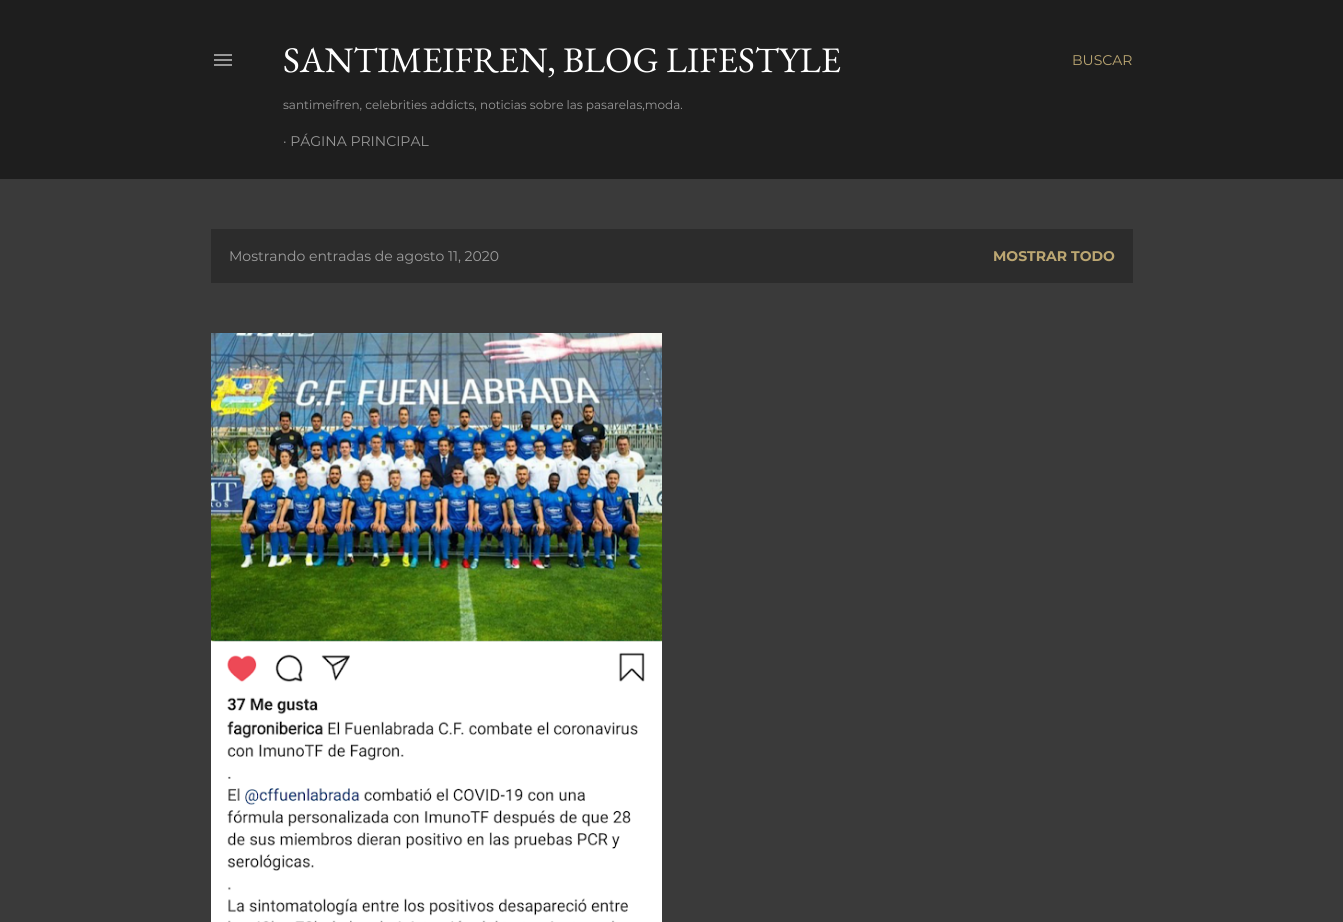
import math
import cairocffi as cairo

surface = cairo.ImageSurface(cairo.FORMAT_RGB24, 1343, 922)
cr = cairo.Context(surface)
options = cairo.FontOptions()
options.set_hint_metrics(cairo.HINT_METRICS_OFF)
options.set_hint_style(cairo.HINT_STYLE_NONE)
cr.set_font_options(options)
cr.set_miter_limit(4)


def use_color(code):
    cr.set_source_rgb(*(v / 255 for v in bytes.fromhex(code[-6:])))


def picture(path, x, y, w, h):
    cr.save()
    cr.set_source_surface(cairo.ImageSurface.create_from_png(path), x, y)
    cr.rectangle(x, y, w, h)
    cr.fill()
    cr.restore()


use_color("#3a3a3a")
cr.paint()
use_color("#1e1e1e")
cr.rectangle(0, 0, 1343, 179)
cr.fill()
picture("img1.png", 214, 54, 18, 12)
cr.select_font_face("EB Garamond")
cr.set_font_size(36)
use_color("#ffffff")
cr.move_to(283, 72)
cr.show_text("SANTIMEIFREN, BLOG LIFESTYLE")
cr.select_font_face("Montserrat")
cr.set_font_size(12)
use_color("#989898")
cr.move_to(283, 109)
cr.show_text("santimeifren, celebrities addicts, noticias sobre las pasarelas,moda.")
cr.set_font_size(14)
cr.move_to(283, 146)
cr.show_text("· PÁGINA PRINCIPAL")
use_color("#bca772")
cr.move_to(1072, 65)
cr.show_text("BUSCAR")
use_color("#2c2c2c")
cr.rectangle(211, 229, 922, 54)
cr.fill()
use_color("#9e9e9e")
cr.move_to(229, 261)
cr.show_text("Mostrando entradas de agosto 11, 2020")
cr.select_font_face("Montserrat", cairo.FONT_SLANT_NORMAL, cairo.FONT_WEIGHT_BOLD)
use_color("#bca772")
cr.move_to(993, 261)
cr.show_text("MOSTRAR TODO")
picture("img2.png", 211, 333, 451, 589)
surface.write_to_png("result.png")
